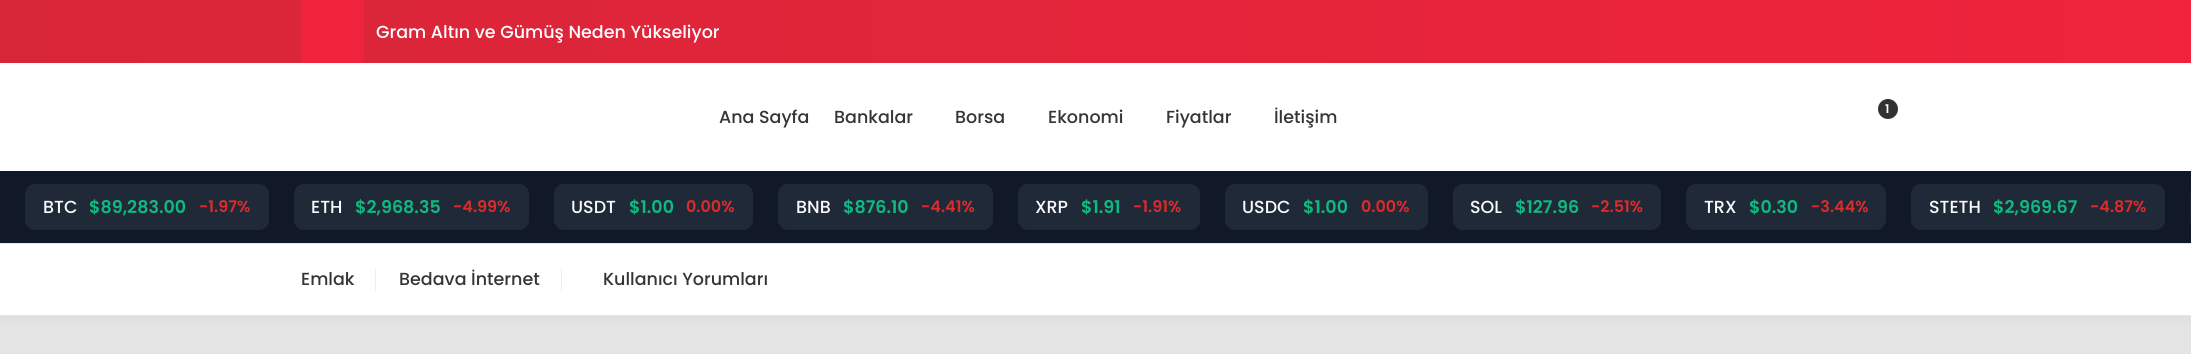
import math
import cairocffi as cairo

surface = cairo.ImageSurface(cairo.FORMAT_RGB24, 2191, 354)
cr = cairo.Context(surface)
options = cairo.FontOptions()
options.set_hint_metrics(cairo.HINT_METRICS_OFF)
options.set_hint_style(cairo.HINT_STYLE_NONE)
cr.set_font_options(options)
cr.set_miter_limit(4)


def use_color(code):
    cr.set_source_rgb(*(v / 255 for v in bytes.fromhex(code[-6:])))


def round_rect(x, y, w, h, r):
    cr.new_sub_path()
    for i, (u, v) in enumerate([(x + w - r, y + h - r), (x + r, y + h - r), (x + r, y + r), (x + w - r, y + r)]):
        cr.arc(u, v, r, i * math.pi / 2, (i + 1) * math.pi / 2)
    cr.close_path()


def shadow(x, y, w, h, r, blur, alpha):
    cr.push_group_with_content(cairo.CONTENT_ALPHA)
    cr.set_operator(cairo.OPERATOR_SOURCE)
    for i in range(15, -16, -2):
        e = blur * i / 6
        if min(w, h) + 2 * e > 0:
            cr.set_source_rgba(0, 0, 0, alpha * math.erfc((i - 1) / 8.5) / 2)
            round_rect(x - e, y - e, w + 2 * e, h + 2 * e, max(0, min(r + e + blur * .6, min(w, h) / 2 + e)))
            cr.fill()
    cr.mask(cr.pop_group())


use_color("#f5f5f5")
cr.paint()
gradient = cairo.LinearGradient(0, 31, 2191, 31)
gradient.add_color_stop_rgba(0, 0.843, 0.149, 0.22, 1)
gradient.add_color_stop_rgba(1, 0.937, 0.137, 0.235, 1)
cr.set_source(gradient)
cr.rectangle(0, 0, 2191, 63)
cr.fill()
use_color("#ef233c")
cr.rectangle(301, 0, 63, 63)
cr.fill()
cr.select_font_face("Poppins Medium")
cr.set_font_size(17.5)
use_color("#ffffff")
cr.move_to(376, 38)
cr.show_text("Gram Altın ve Gümüş Neden Yükseliyor")
cr.rectangle(0, 63, 2191, 108)
cr.fill()
use_color("#353535")
cr.move_to(719, 123)
cr.show_text("Ana Sayfa")
cr.move_to(834, 123)
cr.show_text("Bankalar")
cr.move_to(955, 123)
cr.show_text("Borsa")
cr.move_to(1048, 123)
cr.show_text("Ekonomi")
cr.move_to(1166, 123)
cr.show_text("Fiyatlar")
cr.move_to(1274, 123)
cr.show_text("İletişim")
use_color("#313131")
cr.new_path()
cr.arc(1888, 109, 10, 0, 2 * math.pi)
cr.fill()
cr.select_font_face("Poppins SemiBold")
cr.set_font_size(12)
use_color("#ffffff")
cr.move_to(1885, 113)
cr.show_text("1")
use_color("#000000")
shadow(0, 245, 2191, 74, 0, 5, 0.05)
use_color("#111827")
cr.rectangle(0, 171, 2191, 72)
cr.fill()
use_color("#1f2937")
round_rect(25, 184, 244, 46, 10)
cr.fill()
cr.select_font_face("Poppins Medium")
cr.set_font_size(17.5)
use_color("#f9fafb")
cr.move_to(43, 213)
cr.show_text("BTC")
cr.select_font_face("Poppins SemiBold")
use_color("#10b981")
cr.move_to(89, 213)
cr.show_text("$89,283.00")
cr.set_font_size(16)
use_color("#df2a2a")
cr.move_to(199, 212)
cr.show_text("-1.97%")
use_color("#1f2937")
round_rect(294, 184, 235, 46, 10)
cr.fill()
cr.select_font_face("Poppins Medium")
cr.set_font_size(17.5)
use_color("#f9fafb")
cr.move_to(311, 213)
cr.show_text("ETH")
cr.select_font_face("Poppins SemiBold")
use_color("#10b981")
cr.move_to(355, 213)
cr.show_text("$2,968.35")
cr.set_font_size(16)
use_color("#df2a2a")
cr.move_to(453, 212)
cr.show_text("-4.99%")
use_color("#1f2937")
round_rect(554, 184, 199, 46, 10)
cr.fill()
cr.select_font_face("Poppins Medium")
cr.set_font_size(17.5)
use_color("#f9fafb")
cr.move_to(571, 213)
cr.show_text("USDT")
cr.select_font_face("Poppins SemiBold")
use_color("#10b981")
cr.move_to(629, 213)
cr.show_text("$1.00")
cr.set_font_size(16)
use_color("#df2a2a")
cr.move_to(686, 212)
cr.show_text("0.00%")
use_color("#1f2937")
round_rect(778, 184, 215, 46, 10)
cr.fill()
cr.select_font_face("Poppins Medium")
cr.set_font_size(17.5)
use_color("#f9fafb")
cr.move_to(796, 213)
cr.show_text("BNB")
cr.select_font_face("Poppins SemiBold")
use_color("#10b981")
cr.move_to(843, 213)
cr.show_text("$876.10")
cr.set_font_size(16)
use_color("#df2a2a")
cr.move_to(921, 212)
cr.show_text("-4.41%")
use_color("#1f2937")
round_rect(1018, 184, 182, 46, 10)
cr.fill()
cr.select_font_face("Poppins Medium")
cr.set_font_size(17.5)
use_color("#f9fafb")
cr.move_to(1035, 213)
cr.show_text("XRP")
cr.select_font_face("Poppins SemiBold")
use_color("#10b981")
cr.move_to(1081, 213)
cr.show_text("$1.91")
cr.set_font_size(16)
use_color("#df2a2a")
cr.move_to(1133, 212)
cr.show_text("-1.91%")
use_color("#1f2937")
round_rect(1225, 184, 203, 46, 10)
cr.fill()
cr.select_font_face("Poppins Medium")
cr.set_font_size(17.5)
use_color("#f9fafb")
cr.move_to(1242, 213)
cr.show_text("USDC")
cr.select_font_face("Poppins SemiBold")
use_color("#10b981")
cr.move_to(1303, 213)
cr.show_text("$1.00")
cr.set_font_size(16)
use_color("#df2a2a")
cr.move_to(1361, 212)
cr.show_text("0.00%")
use_color("#1f2937")
round_rect(1453, 184, 208, 46, 10)
cr.fill()
cr.select_font_face("Poppins Medium")
cr.set_font_size(17.5)
use_color("#f9fafb")
cr.move_to(1470, 213)
cr.show_text("SOL")
cr.select_font_face("Poppins SemiBold")
use_color("#10b981")
cr.move_to(1515, 213)
cr.show_text("$127.96")
cr.set_font_size(16)
use_color("#df2a2a")
cr.move_to(1591, 212)
cr.show_text("-2.51%")
use_color("#1f2937")
round_rect(1686, 184, 200, 46, 10)
cr.fill()
cr.select_font_face("Poppins Medium")
cr.set_font_size(17.5)
use_color("#f9fafb")
cr.move_to(1704, 213)
cr.show_text("TRX")
cr.select_font_face("Poppins SemiBold")
use_color("#10b981")
cr.move_to(1749, 213)
cr.show_text("$0.30")
cr.set_font_size(16)
use_color("#df2a2a")
cr.move_to(1811, 212)
cr.show_text("-3.44%")
use_color("#1f2937")
round_rect(1911, 184, 254, 46, 10)
cr.fill()
cr.select_font_face("Poppins Medium")
cr.set_font_size(17.5)
use_color("#f9fafb")
cr.move_to(1929, 213)
cr.show_text("STETH")
cr.select_font_face("Poppins SemiBold")
use_color("#10b981")
cr.move_to(1993, 213)
cr.show_text("$2,969.67")
cr.set_font_size(16)
use_color("#df2a2a")
cr.move_to(2090, 212)
cr.show_text("-4.87%")
use_color("#1f2937")
cr.new_path()
cr.move_to(2200, 184)
cr.line_to(2191, 184)
cr.line_to(2191, 230)
cr.line_to(2200, 230)
cr.curve_to(2194.5, 230, 2190, 225.5, 2190, 220)
cr.line_to(2190, 194)
cr.curve_to(2190, 188.5, 2194.5, 184, 2200, 184)
cr.close_path()
cr.fill()
use_color("#ffffff")
cr.rectangle(0, 244, 2191, 71)
cr.fill()
use_color("#e6e6e6")
cr.rectangle(0, 243, 2191, 1)
cr.fill()
cr.rectangle(0, 315, 2191, 1)
cr.fill()
cr.select_font_face("Poppins Medium")
cr.set_font_size(17.5)
use_color("#353535")
cr.move_to(301, 285)
cr.show_text("Emlak")
use_color("#eeeeee")
cr.rectangle(375, 269, 1, 22)
cr.fill()
use_color("#353535")
cr.move_to(399, 285)
cr.show_text("Bedava İnternet")
use_color("#eeeeee")
cr.rectangle(561, 269, 1, 22)
cr.fill()
use_color("#353535")
cr.move_to(603, 285)
cr.show_text("Kullanıcı Yorumları")
cr.set_source_rgba(0.765, 0.761, 0.761, 0.33)
cr.rectangle(0, 316, 2191, 38)
cr.fill()
surface.write_to_png("result.png")
